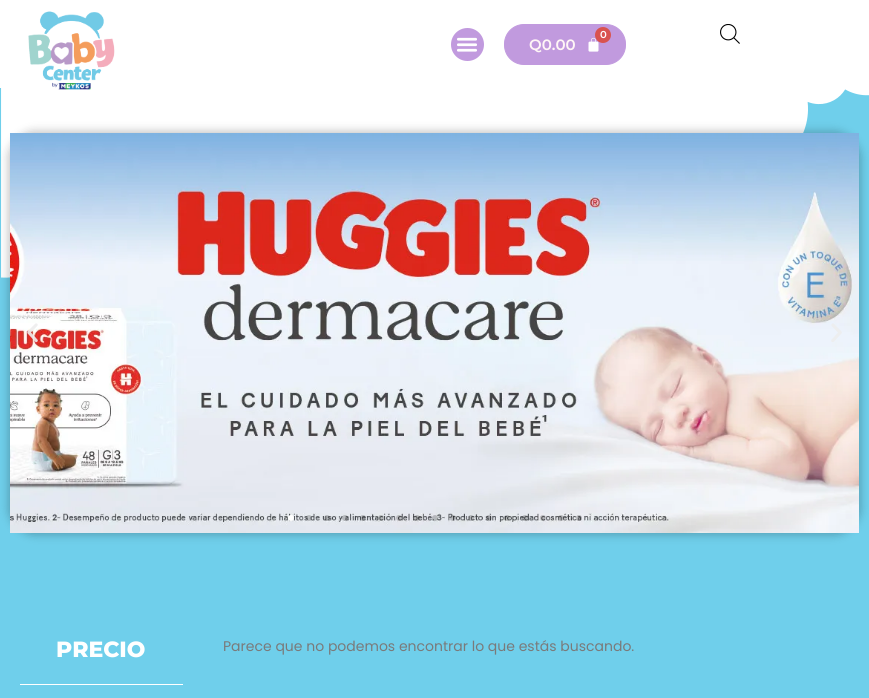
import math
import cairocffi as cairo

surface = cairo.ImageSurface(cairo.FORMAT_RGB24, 869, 698)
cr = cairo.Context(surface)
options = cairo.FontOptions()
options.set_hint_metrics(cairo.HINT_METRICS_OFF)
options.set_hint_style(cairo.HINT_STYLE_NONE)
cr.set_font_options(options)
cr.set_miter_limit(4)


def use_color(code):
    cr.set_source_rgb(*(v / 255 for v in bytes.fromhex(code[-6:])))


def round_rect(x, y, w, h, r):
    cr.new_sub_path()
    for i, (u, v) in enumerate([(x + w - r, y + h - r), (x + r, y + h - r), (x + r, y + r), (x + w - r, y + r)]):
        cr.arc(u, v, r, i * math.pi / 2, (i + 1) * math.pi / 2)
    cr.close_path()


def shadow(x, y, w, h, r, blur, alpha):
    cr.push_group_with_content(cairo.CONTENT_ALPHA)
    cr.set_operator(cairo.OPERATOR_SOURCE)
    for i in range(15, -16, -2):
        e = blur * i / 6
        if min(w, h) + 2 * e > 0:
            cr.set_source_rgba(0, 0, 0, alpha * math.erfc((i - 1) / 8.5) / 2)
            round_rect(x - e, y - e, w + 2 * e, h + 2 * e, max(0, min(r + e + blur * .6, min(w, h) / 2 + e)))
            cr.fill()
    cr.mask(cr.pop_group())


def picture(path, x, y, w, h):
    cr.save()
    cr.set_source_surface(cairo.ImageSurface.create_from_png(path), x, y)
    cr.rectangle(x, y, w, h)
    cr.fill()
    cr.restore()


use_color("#6fcfeb")
cr.paint()
use_color("#ffffff")
cr.rectangle(0, 0, 869, 88)
cr.fill()
picture("img5.png", 1, 88, 868, 190)
picture("img1.png", 28, 11, 87, 79)
use_color("#c19ade")
cr.arc(467.5, 44.5, 16.5, 0, 2 * math.pi)
cr.fill()
picture("img2.png", 457, 37, 20, 15)
round_rect(504.5, 24.5, 121, 40, 19.5)
cr.fill_preserve()
cr.set_line_width(1)
cr.stroke()
picture("img3.png", 588, 37, 11, 15)
use_color("#d9534f")
cr.arc(603, 35, 8, 0, 2 * math.pi)
cr.fill()
cr.select_font_face("Montserrat SemiBold")
cr.set_font_size(10)
use_color("#ffffff")
cr.move_to(600, 38)
cr.show_text("0")
cr.set_font_size(15)
use_color("#fff6f6")
cr.move_to(529, 50)
cr.show_text("Q0.00")
picture("img4.png", 720, 24, 20, 20)
use_color("#000000")
shadow(8, 131, 853, 404, 27, 4.5, 0.23)
picture("img6.png", 10, 133, 849, 400)
picture("img7.png", 27, 323, 11, 20)
picture("img8.png", 831, 323, 11, 19)
use_color("#ffffff")
cr.arc(291, 518, 3, 0, 2 * math.pi)
cr.fill()
cr.set_source_rgba(0, 0, 0, 0.2)
cr.arc(309, 518, 3, 0, 2 * math.pi)
cr.fill()
cr.arc(327, 518, 3, 0, 2 * math.pi)
cr.fill()
cr.arc(345, 518, 3, 0, 2 * math.pi)
cr.fill()
cr.arc(363, 518, 3, 0, 2 * math.pi)
cr.fill()
cr.arc(381, 518, 3, 0, 2 * math.pi)
cr.fill()
cr.arc(399, 518, 3, 0, 2 * math.pi)
cr.fill()
cr.arc(417, 518, 3, 0, 2 * math.pi)
cr.fill()
cr.arc(435, 518, 3, 0, 2 * math.pi)
cr.fill()
cr.arc(453, 518, 3, 0, 2 * math.pi)
cr.fill()
cr.arc(471, 518, 3, 0, 2 * math.pi)
cr.fill()
cr.arc(489, 518, 3, 0, 2 * math.pi)
cr.fill()
cr.arc(507, 518, 3, 0, 2 * math.pi)
cr.fill()
cr.arc(525, 518, 3, 0, 2 * math.pi)
cr.fill()
cr.arc(543, 518, 3, 0, 2 * math.pi)
cr.fill()
cr.arc(561, 518, 3, 0, 2 * math.pi)
cr.fill()
cr.arc(579, 518, 3, 0, 2 * math.pi)
cr.fill()
cr.select_font_face("Montserrat ExtraBold")
cr.set_font_size(22)
use_color("#ffffff")
cr.move_to(56, 657)
cr.show_text("PRECIO")
cr.rectangle(20, 684, 163, 1)
cr.fill()
cr.select_font_face("Poppins")
cr.set_font_size(14)
use_color("#7a7a7a")
cr.move_to(223, 651)
cr.show_text("Parece que no podemos encontrar lo que estás buscando.")
surface.write_to_png("result.png")
